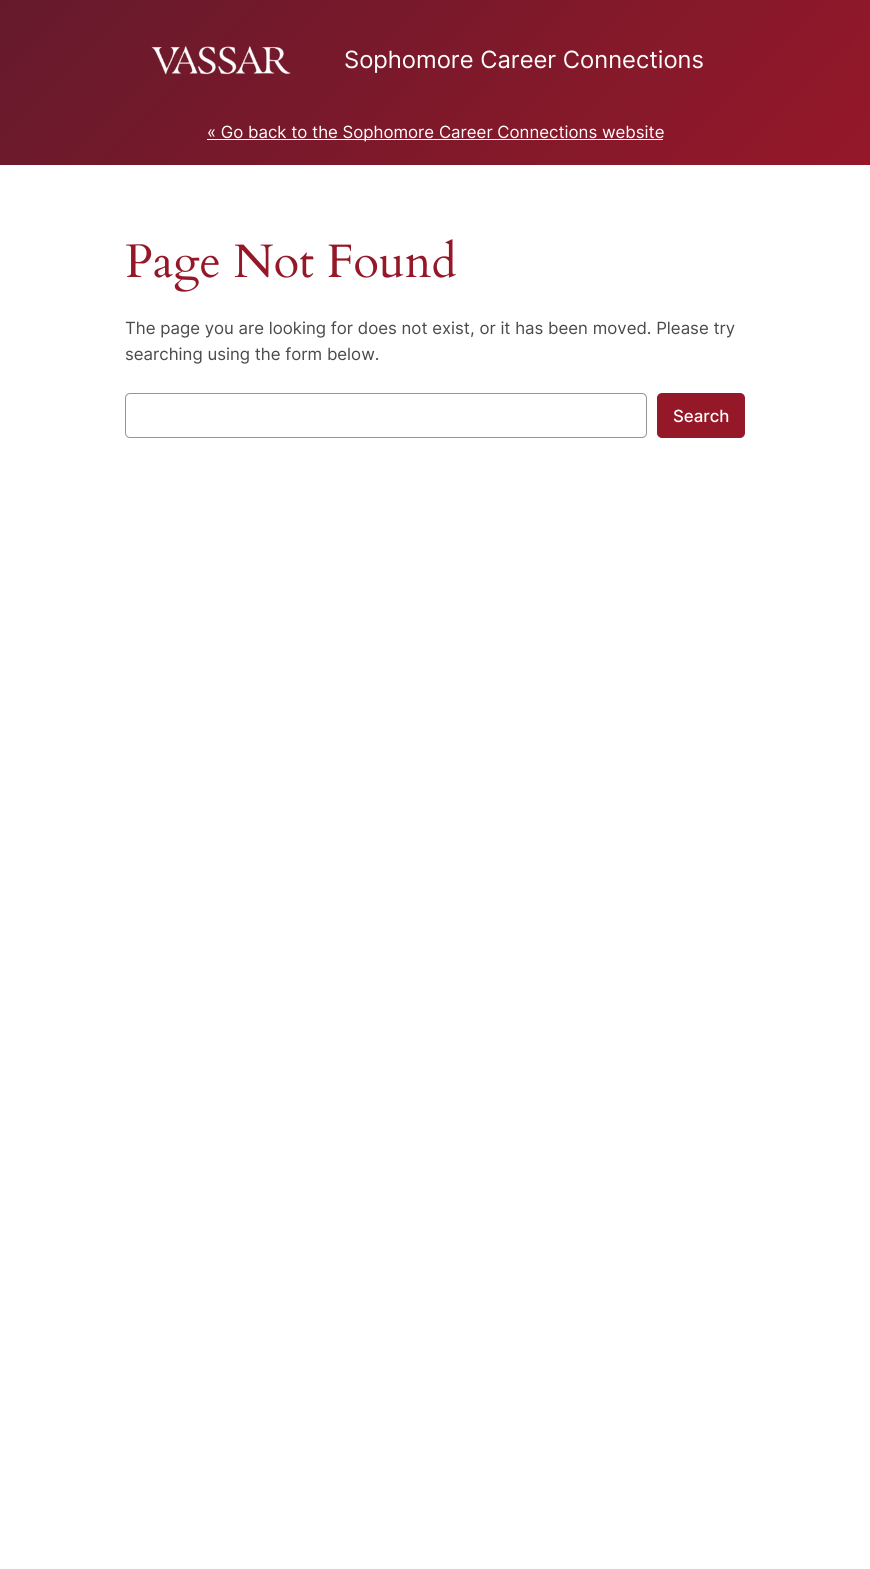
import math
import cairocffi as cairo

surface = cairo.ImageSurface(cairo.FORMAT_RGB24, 870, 1569)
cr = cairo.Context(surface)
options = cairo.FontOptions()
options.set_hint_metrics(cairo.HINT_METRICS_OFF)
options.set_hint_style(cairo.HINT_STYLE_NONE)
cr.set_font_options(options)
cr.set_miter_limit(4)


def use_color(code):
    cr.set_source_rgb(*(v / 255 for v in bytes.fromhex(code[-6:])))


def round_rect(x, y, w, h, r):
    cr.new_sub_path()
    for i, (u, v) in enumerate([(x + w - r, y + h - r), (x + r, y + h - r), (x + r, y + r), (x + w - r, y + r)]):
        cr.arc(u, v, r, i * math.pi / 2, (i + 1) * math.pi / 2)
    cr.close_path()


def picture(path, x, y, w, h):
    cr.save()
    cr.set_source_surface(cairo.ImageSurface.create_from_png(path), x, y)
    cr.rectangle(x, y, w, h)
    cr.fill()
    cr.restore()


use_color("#ffffff")
cr.paint()
gradient = cairo.LinearGradient(176, -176, 694, 341)
gradient.add_color_stop_rgba(0, 0.396, 0.102, 0.173, 1)
gradient.add_color_stop_rgba(1, 0.584, 0.094, 0.161, 1)
cr.set_source(gradient)
cr.rectangle(0, 0, 870, 165)
cr.fill()
picture("img1.png", 151, 46, 140, 29)
cr.select_font_face("Inter")
cr.set_font_size(23.75)
use_color("#ffffff")
cr.move_to(344, 68)
cr.show_text("Sophomore Career Connections")
cr.rectangle(207, 139, 456, 1)
cr.fill()
cr.set_font_size(16.8)
cr.move_to(207, 138)
cr.show_text("« Go back to the Sophomore Career Connections website")
picture("img2.png", 126, 239, 330, 53)
use_color("#4a4a4a")
cr.move_to(125, 334)
cr.show_text("The page you are looking for does not exist, or it has been moved. Please try")
cr.move_to(125, 360)
cr.show_text("searching using the form below.")
round_rect(125.5, 393.5, 521, 44, 4.5)
use_color("#949494")
cr.set_line_width(1)
cr.stroke()
use_color("#951829")
round_rect(657, 393, 88, 45, 5)
cr.fill()
cr.select_font_face("Inter Medium")
use_color("#ffffff")
cr.move_to(673, 422)
cr.show_text("Search")
surface.write_to_png("result.png")
